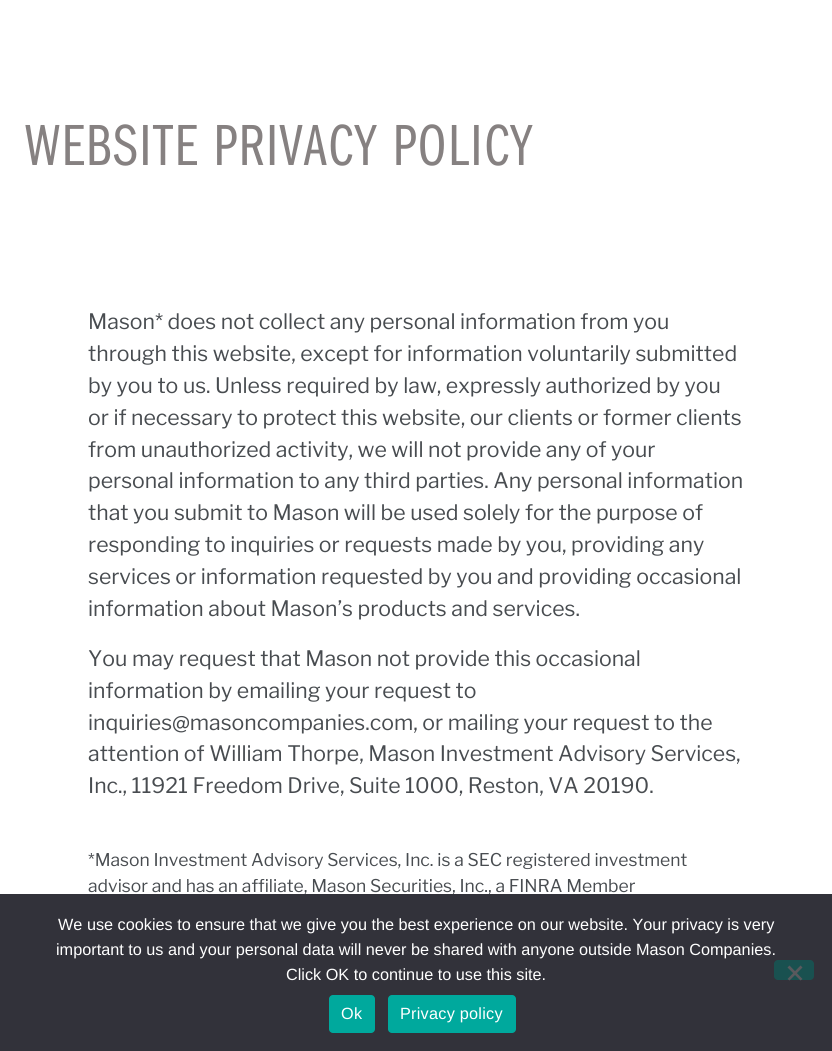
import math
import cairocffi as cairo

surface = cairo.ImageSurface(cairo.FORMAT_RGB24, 832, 1051)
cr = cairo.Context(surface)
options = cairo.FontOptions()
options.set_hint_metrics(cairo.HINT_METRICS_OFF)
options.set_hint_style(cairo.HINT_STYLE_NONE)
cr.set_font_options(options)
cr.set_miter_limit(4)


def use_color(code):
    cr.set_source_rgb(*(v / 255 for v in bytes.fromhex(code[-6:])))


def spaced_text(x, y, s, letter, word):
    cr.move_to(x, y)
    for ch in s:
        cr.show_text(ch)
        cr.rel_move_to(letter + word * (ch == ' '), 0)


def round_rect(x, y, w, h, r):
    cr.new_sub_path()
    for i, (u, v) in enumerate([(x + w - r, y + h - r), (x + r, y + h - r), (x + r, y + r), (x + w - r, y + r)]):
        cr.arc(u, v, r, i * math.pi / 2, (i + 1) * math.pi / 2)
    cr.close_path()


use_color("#ffffff")
cr.paint()
cr.select_font_face("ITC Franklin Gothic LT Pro")
cr.set_font_size(60)
use_color("#868181")
spaced_text(25, 165, "WEBSITE PRIVACY POLICY", 1.75, 0)
cr.select_font_face("Libre Franklin")
cr.set_font_size(21.25)
use_color("#484c50")
cr.move_to(88, 329)
cr.show_text("Mason* does not collect any personal information from you")
cr.move_to(88, 361)
cr.show_text("through this website, except for information voluntarily submitted")
cr.move_to(88, 393)
cr.show_text("by you to us. Unless required by law, expressly authorized by you")
cr.move_to(88, 425)
cr.show_text("or if necessary to protect this website, our clients or former clients")
cr.move_to(88, 457)
cr.show_text("from unauthorized activity, we will not provide any of your")
cr.move_to(88, 488)
cr.show_text("personal information to any third parties. Any personal information")
cr.move_to(88, 520)
cr.show_text("that you submit to Mason will be used solely for the purpose of")
cr.move_to(88, 552)
cr.show_text("responding to inquiries or requests made by you, providing any")
cr.move_to(88, 584)
cr.show_text("services or information requested by you and providing occasional")
cr.move_to(88, 616)
cr.show_text("information about Mason’s products and services.")
cr.move_to(88, 666)
cr.show_text("You may request that Mason not provide this occasional")
cr.move_to(88, 698)
cr.show_text("information by emailing your request to")
cr.move_to(88, 730)
cr.show_text("inquiries@masoncompanies.com, or mailing your request to the")
cr.move_to(88, 761)
cr.show_text("attention of William Thorpe, Mason Investment Advisory Services,")
cr.move_to(88, 793)
cr.show_text("Inc., 11921 Freedom Drive, Suite 1000, Reston, VA 20190.")
cr.set_font_size(17.5)
cr.move_to(88, 866)
cr.show_text("*Mason Investment Advisory Services, Inc. is a SEC registered investment")
cr.move_to(88, 892)
cr.show_text("advisor and has an affiliate, Mason Securities, Inc., a FINRA Member")
use_color("#32323a")
cr.rectangle(0, 894, 832, 157)
cr.fill()
cr.select_font_face("Liberation Sans")
cr.set_font_size(16.25)
use_color("#ffffff")
cr.move_to(58, 930)
cr.show_text("We use cookies to ensure that we give you the best experience on our website. Your privacy is very")
cr.move_to(56, 955)
cr.show_text("important to us and your personal data will never be shared with anyone outside Mason Companies.")
cr.move_to(286, 980)
cr.show_text("Click OK to continue to use this site.")
use_color("#195150")
round_rect(774, 960, 40, 20, 4)
cr.fill()
use_color("#59595d")
cr.new_path()
cr.move_to(800.5, 965.5)
cr.line_to(802.5, 967.5)
cr.line_to(789.5, 980.5)
cr.line_to(787.5, 979)
cr.close_path()
cr.fill()
cr.new_path()
cr.move_to(787.5, 967.5)
cr.line_to(789.5, 965.5)
cr.line_to(802.5, 979)
cr.line_to(800.5, 980.5)
cr.close_path()
cr.fill()
use_color("#00a99d")
round_rect(329, 995, 46, 38, 4)
cr.fill()
use_color("#ffffff")
spaced_text(341, 1019, "Ok", 0.25, 0)
use_color("#00a99d")
round_rect(388, 995, 128, 38, 4)
cr.fill()
use_color("#ffffff")
spaced_text(400, 1019, "Privacy policy", 0.25, 0)
surface.write_to_png("result.png")
